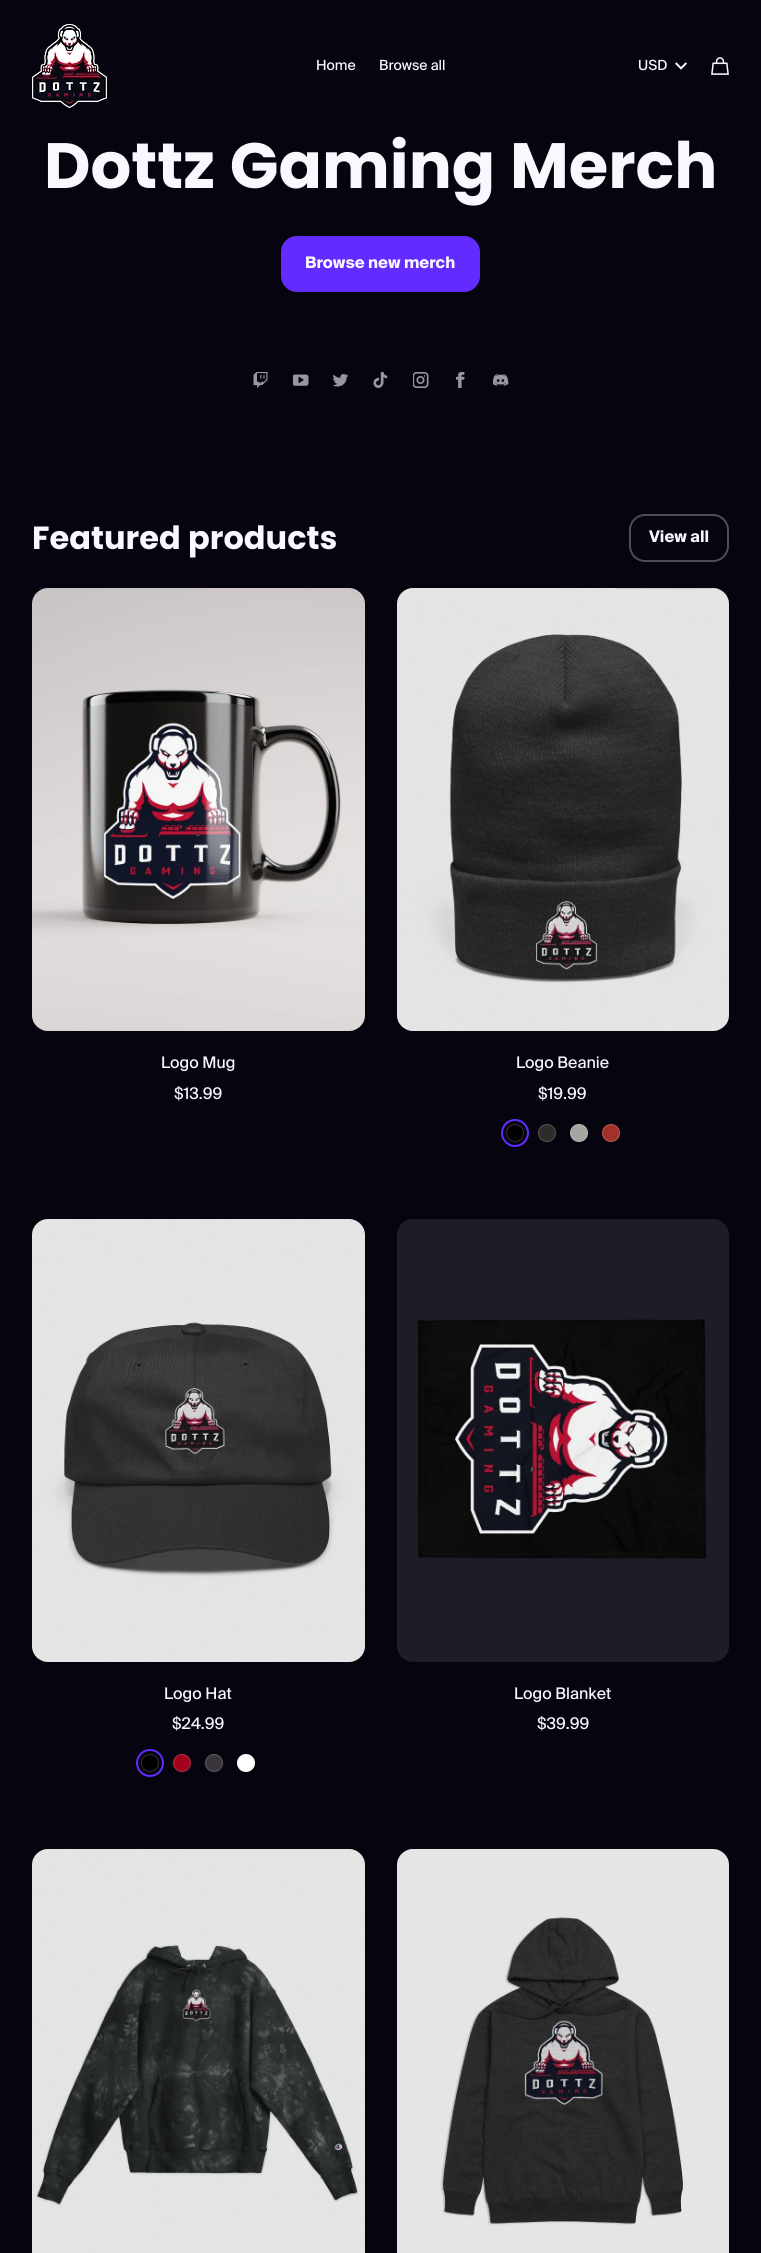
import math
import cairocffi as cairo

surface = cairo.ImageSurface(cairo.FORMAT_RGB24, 761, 2253)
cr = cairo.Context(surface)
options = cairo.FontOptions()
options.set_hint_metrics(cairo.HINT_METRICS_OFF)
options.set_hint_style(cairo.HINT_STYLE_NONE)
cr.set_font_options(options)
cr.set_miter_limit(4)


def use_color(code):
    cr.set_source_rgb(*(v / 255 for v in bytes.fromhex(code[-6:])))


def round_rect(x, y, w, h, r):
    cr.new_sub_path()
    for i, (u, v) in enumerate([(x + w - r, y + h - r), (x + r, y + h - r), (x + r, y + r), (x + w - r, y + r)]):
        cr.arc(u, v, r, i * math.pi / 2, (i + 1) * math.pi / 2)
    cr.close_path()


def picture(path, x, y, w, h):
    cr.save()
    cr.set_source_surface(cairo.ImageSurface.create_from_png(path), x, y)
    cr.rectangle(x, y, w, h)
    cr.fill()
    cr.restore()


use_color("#05040f")
cr.paint()
picture("img1.png", 32, 24, 75, 84)
cr.select_font_face("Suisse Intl")
cr.set_font_size(14)
use_color("#f9f8ff")
cr.move_to(316, 70)
cr.show_text("Home")
cr.move_to(379, 70)
cr.show_text("Browse all")
cr.move_to(638, 70)
cr.show_text("USD")
picture("img2.png", 675, 62, 12, 8)
picture("img3.png", 711, 57, 18, 18)
cr.select_font_face("Poppins", cairo.FONT_SLANT_NORMAL, cairo.FONT_WEIGHT_BOLD)
cr.set_font_size(64)
cr.move_to(44, 188)
cr.show_text("Dottz Gaming Merch")
use_color("#632cff")
round_rect(281, 236, 199, 56, 16)
cr.fill()
cr.select_font_face("Suisse Intl", cairo.FONT_SLANT_NORMAL, cairo.FONT_WEIGHT_BOLD)
cr.set_font_size(16)
use_color("#f9f8ff")
cr.move_to(305, 268)
cr.show_text("Browse new merch")
picture("img4.png", 253, 372, 15, 16)
picture("img5.png", 293, 374, 16, 12)
picture("img6.png", 333, 374, 16, 13)
picture("img7.png", 373, 372, 15, 16)
picture("img8.png", 413, 372, 16, 16)
picture("img9.png", 456, 372, 9, 16)
picture("img10.png", 493, 374, 16, 12)
cr.select_font_face("Poppins", cairo.FONT_SLANT_NORMAL, cairo.FONT_WEIGHT_BOLD)
cr.set_font_size(32)
cr.move_to(32, 549)
cr.show_text("Featured products")
round_rect(630, 515, 98, 46, 15)
use_color("#4e4d57")
cr.stroke()
cr.select_font_face("Suisse Intl", cairo.FONT_SLANT_NORMAL, cairo.FONT_WEIGHT_BOLD)
cr.set_font_size(16)
use_color("#f9f8ff")
cr.move_to(649, 542)
cr.show_text("View all")
use_color("#1d1c27")
round_rect(32, 588, 333, 443, 16)
cr.fill()
picture("img11.png", 32, 588, 333, 443)
cr.select_font_face("Suisse Intl")
use_color("#f9f8ff")
cr.move_to(161, 1068)
cr.show_text("Logo Mug")
cr.move_to(174, 1099)
cr.show_text("$13.99")
use_color("#1d1c27")
round_rect(397, 588, 332, 443, 16)
cr.fill()
picture("img12.png", 397, 588, 332, 443)
use_color("#f9f8ff")
cr.move_to(516, 1068)
cr.show_text("Logo Beanie")
cr.move_to(538, 1099)
cr.show_text("$19.99")
cr.new_path()
cr.arc(515, 1133, 13, 0, 2 * math.pi)
use_color("#632cff")
cr.stroke()
use_color("#000000")
cr.arc(515, 1133, 9, 0, 2 * math.pi)
cr.fill()
cr.arc(515, 1133, 8.5, 0, 2 * math.pi)
cr.set_source_rgba(0.976, 0.973, 1, 0.2)
cr.set_line_width(1)
cr.stroke()
use_color("#2d2a2a")
cr.arc(547, 1133, 9, 0, 2 * math.pi)
cr.fill()
cr.arc(547, 1133, 8.5, 0, 2 * math.pi)
cr.set_source_rgba(0.976, 0.973, 1, 0.2)
cr.stroke()
use_color("#a6a5a0")
cr.arc(579, 1133, 9, 0, 2 * math.pi)
cr.fill()
cr.arc(579, 1133, 8.5, 0, 2 * math.pi)
cr.set_source_rgba(0.976, 0.973, 1, 0.2)
cr.stroke()
use_color("#a2312b")
cr.arc(611, 1133, 9, 0, 2 * math.pi)
cr.fill()
cr.arc(611, 1133, 8.5, 0, 2 * math.pi)
cr.set_source_rgba(0.976, 0.973, 1, 0.2)
cr.stroke()
use_color("#1d1c27")
round_rect(32, 1219, 333, 443, 16)
cr.fill()
picture("img13.png", 32, 1219, 333, 443)
use_color("#f9f8ff")
cr.move_to(164, 1699)
cr.show_text("Logo Hat")
cr.move_to(172, 1729)
cr.show_text("$24.99")
cr.new_path()
cr.arc(150, 1763, 13, 0, 2 * math.pi)
use_color("#632cff")
cr.set_line_width(2)
cr.stroke()
use_color("#000000")
cr.arc(150, 1763, 9, 0, 2 * math.pi)
cr.fill()
cr.arc(150, 1763, 8.5, 0, 2 * math.pi)
cr.set_source_rgba(0.976, 0.973, 1, 0.2)
cr.set_line_width(1)
cr.stroke()
use_color("#a3001b")
cr.arc(182, 1763, 9, 0, 2 * math.pi)
cr.fill()
cr.arc(182, 1763, 8.5, 0, 2 * math.pi)
cr.set_source_rgba(0.976, 0.973, 1, 0.2)
cr.stroke()
use_color("#39353a")
cr.arc(214, 1763, 9, 0, 2 * math.pi)
cr.fill()
cr.arc(214, 1763, 8.5, 0, 2 * math.pi)
cr.set_source_rgba(0.976, 0.973, 1, 0.2)
cr.stroke()
use_color("#ffffff")
cr.arc(246, 1763, 9, 0, 2 * math.pi)
cr.fill()
cr.arc(246, 1763, 8.5, 0, 2 * math.pi)
cr.set_source_rgba(0.976, 0.973, 1, 0.2)
cr.stroke()
use_color("#1d1c27")
round_rect(397, 1219, 332, 443, 16)
cr.fill()
picture("img14.png", 417, 1319, 290, 240)
use_color("#f9f8ff")
cr.move_to(514, 1699)
cr.show_text("Logo Blanket")
cr.move_to(537, 1729)
cr.show_text("$39.99")
use_color("#1d1c27")
round_rect(32, 1849, 333, 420, 16)
cr.fill()
picture("img15.png", 32, 1849, 333, 404)
round_rect(397, 1849, 332, 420, 16)
cr.fill()
picture("img16.png", 397, 1849, 332, 404)
surface.write_to_png("result.png")
